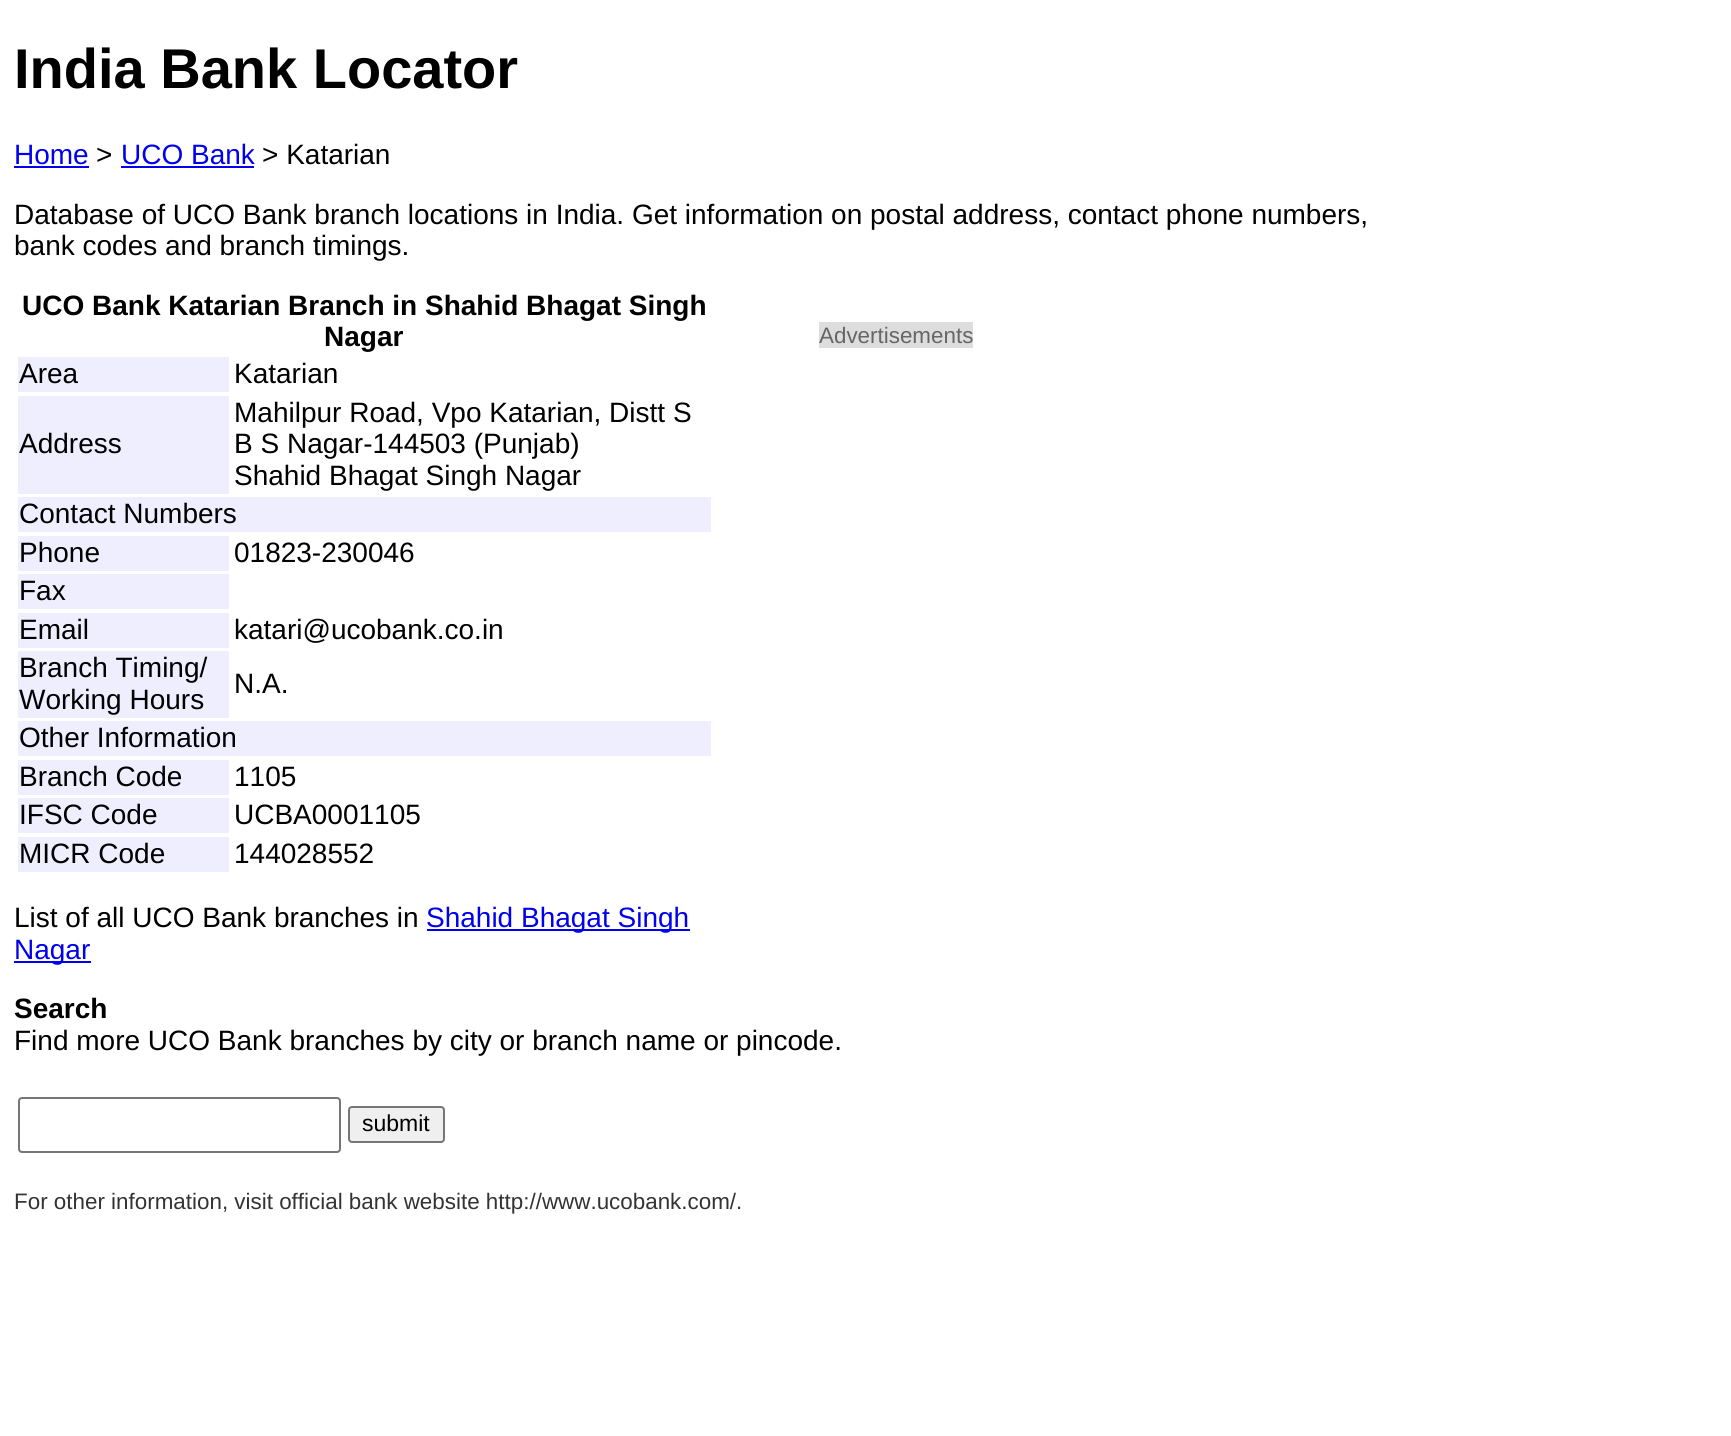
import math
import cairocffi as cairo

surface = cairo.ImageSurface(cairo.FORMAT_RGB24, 1731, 1436)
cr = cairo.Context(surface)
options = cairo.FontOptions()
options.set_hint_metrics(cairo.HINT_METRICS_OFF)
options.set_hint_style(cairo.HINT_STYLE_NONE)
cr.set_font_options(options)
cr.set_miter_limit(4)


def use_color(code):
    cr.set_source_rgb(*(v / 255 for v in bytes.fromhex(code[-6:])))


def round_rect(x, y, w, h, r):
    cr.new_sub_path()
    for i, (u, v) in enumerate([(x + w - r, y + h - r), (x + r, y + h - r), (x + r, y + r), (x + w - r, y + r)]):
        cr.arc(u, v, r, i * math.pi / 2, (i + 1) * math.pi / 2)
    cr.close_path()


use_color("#ffffff")
cr.paint()
cr.select_font_face("Liberation Sans", cairo.FONT_SLANT_NORMAL, cairo.FONT_WEIGHT_BOLD)
cr.set_font_size(56)
use_color("#000000")
cr.move_to(14, 88)
cr.show_text("India Bank Locator")
cr.select_font_face("Liberation Sans")
cr.set_font_size(28)
use_color("#0000ee")
cr.move_to(14, 164)
cr.show_text("Home")
cr.rectangle(14, 166, 75, 2)
cr.fill()
use_color("#000000")
cr.move_to(96, 164)
cr.show_text(">")
use_color("#0000ee")
cr.move_to(121, 164)
cr.show_text("UCO Bank")
cr.rectangle(121, 166, 133, 2)
cr.fill()
use_color("#000000")
cr.move_to(262, 164)
cr.show_text("> Katarian")
cr.move_to(14, 224)
cr.show_text("Database of UCO Bank branch locations in India. Get information on postal address, contact phone numbers,")
cr.move_to(14, 255)
cr.show_text("bank codes and branch timings.")
cr.select_font_face("Liberation Sans", cairo.FONT_SLANT_NORMAL, cairo.FONT_WEIGHT_BOLD)
cr.move_to(22, 315)
cr.show_text("UCO Bank Katarian Branch in Shahid Bhagat Singh")
cr.move_to(324, 346)
cr.show_text("Nagar")
use_color("#eeeeff")
cr.rectangle(18, 357, 211, 35)
cr.fill()
cr.select_font_face("Liberation Sans")
use_color("#000000")
cr.move_to(19, 383)
cr.show_text("Area")
cr.move_to(234, 383)
cr.show_text("Katarian")
use_color("#eeeeff")
cr.rectangle(18, 396, 211, 98)
cr.fill()
use_color("#000000")
cr.move_to(19, 453)
cr.show_text("Address")
cr.move_to(234, 422)
cr.show_text("Mahilpur Road, Vpo Katarian, Distt S")
cr.move_to(234, 453)
cr.show_text("B S Nagar-144503 (Punjab)")
cr.move_to(234, 485)
cr.show_text("Shahid Bhagat Singh Nagar")
use_color("#eeeeff")
cr.rectangle(18, 497, 693, 35)
cr.fill()
use_color("#000000")
cr.move_to(19, 523)
cr.show_text("Contact Numbers")
use_color("#eeeeff")
cr.rectangle(18, 536, 211, 35)
cr.fill()
use_color("#000000")
cr.move_to(19, 562)
cr.show_text("Phone")
cr.move_to(234, 562)
cr.show_text("01823-230046")
use_color("#eeeeff")
cr.rectangle(18, 574, 211, 35)
cr.fill()
use_color("#000000")
cr.move_to(19, 600)
cr.show_text("Fax")
use_color("#eeeeff")
cr.rectangle(18, 613, 211, 35)
cr.fill()
use_color("#000000")
cr.move_to(19, 639)
cr.show_text("Email")
cr.move_to(234, 639)
cr.show_text("katari@ucobank.co.in")
use_color("#eeeeff")
cr.rectangle(18, 651, 211, 67)
cr.fill()
use_color("#000000")
cr.move_to(19, 677)
cr.show_text("Branch Timing/")
cr.move_to(19, 709)
cr.show_text("Working Hours")
cr.move_to(234, 693)
cr.show_text("N.A.")
use_color("#eeeeff")
cr.rectangle(18, 721, 693, 35)
cr.fill()
use_color("#000000")
cr.move_to(19, 747)
cr.show_text("Other Information")
use_color("#eeeeff")
cr.rectangle(18, 760, 211, 35)
cr.fill()
use_color("#000000")
cr.move_to(19, 786)
cr.show_text("Branch Code")
cr.move_to(234, 786)
cr.show_text("1105")
use_color("#eeeeff")
cr.rectangle(18, 798, 211, 35)
cr.fill()
use_color("#000000")
cr.move_to(19, 824)
cr.show_text("IFSC Code")
cr.move_to(234, 824)
cr.show_text("UCBA0001105")
use_color("#eeeeff")
cr.rectangle(18, 837, 211, 35)
cr.fill()
use_color("#000000")
cr.move_to(19, 863)
cr.show_text("MICR Code")
cr.move_to(234, 863)
cr.show_text("144028552")
cr.move_to(14, 927)
cr.show_text("List of all UCO Bank branches in")
use_color("#0000ee")
cr.rectangle(427, 929, 263, 2)
cr.fill()
cr.move_to(426, 927)
cr.show_text("Shahid Bhagat Singh")
cr.rectangle(14, 961, 77, 2)
cr.fill()
cr.move_to(14, 959)
cr.show_text("Nagar")
use_color("#dddddd")
cr.rectangle(819, 322, 154, 26)
cr.fill()
cr.set_font_size(22.4)
use_color("#666666")
cr.move_to(819, 343)
cr.show_text("Advertisements")
cr.select_font_face("Liberation Sans", cairo.FONT_SLANT_NORMAL, cairo.FONT_WEIGHT_BOLD)
cr.set_font_size(28)
use_color("#000000")
cr.move_to(14, 1018)
cr.show_text("Search")
cr.select_font_face("Liberation Sans")
cr.move_to(14, 1050)
cr.show_text("Find more UCO Bank branches by city or branch name or pincode.")
round_rect(19, 1098, 321, 54, 3)
use_color("#767676")
cr.stroke()
use_color("#efefef")
round_rect(349, 1107, 95, 35, 3)
cr.fill_preserve()
use_color("#767676")
cr.stroke()
cr.set_font_size(23)
use_color("#000000")
cr.move_to(362, 1131)
cr.show_text("submit")
cr.set_font_size(22.4)
use_color("#333333")
cr.move_to(14, 1209)
cr.show_text("For other information, visit official bank website http://www.ucobank.com/.")
surface.write_to_png("result.png")
